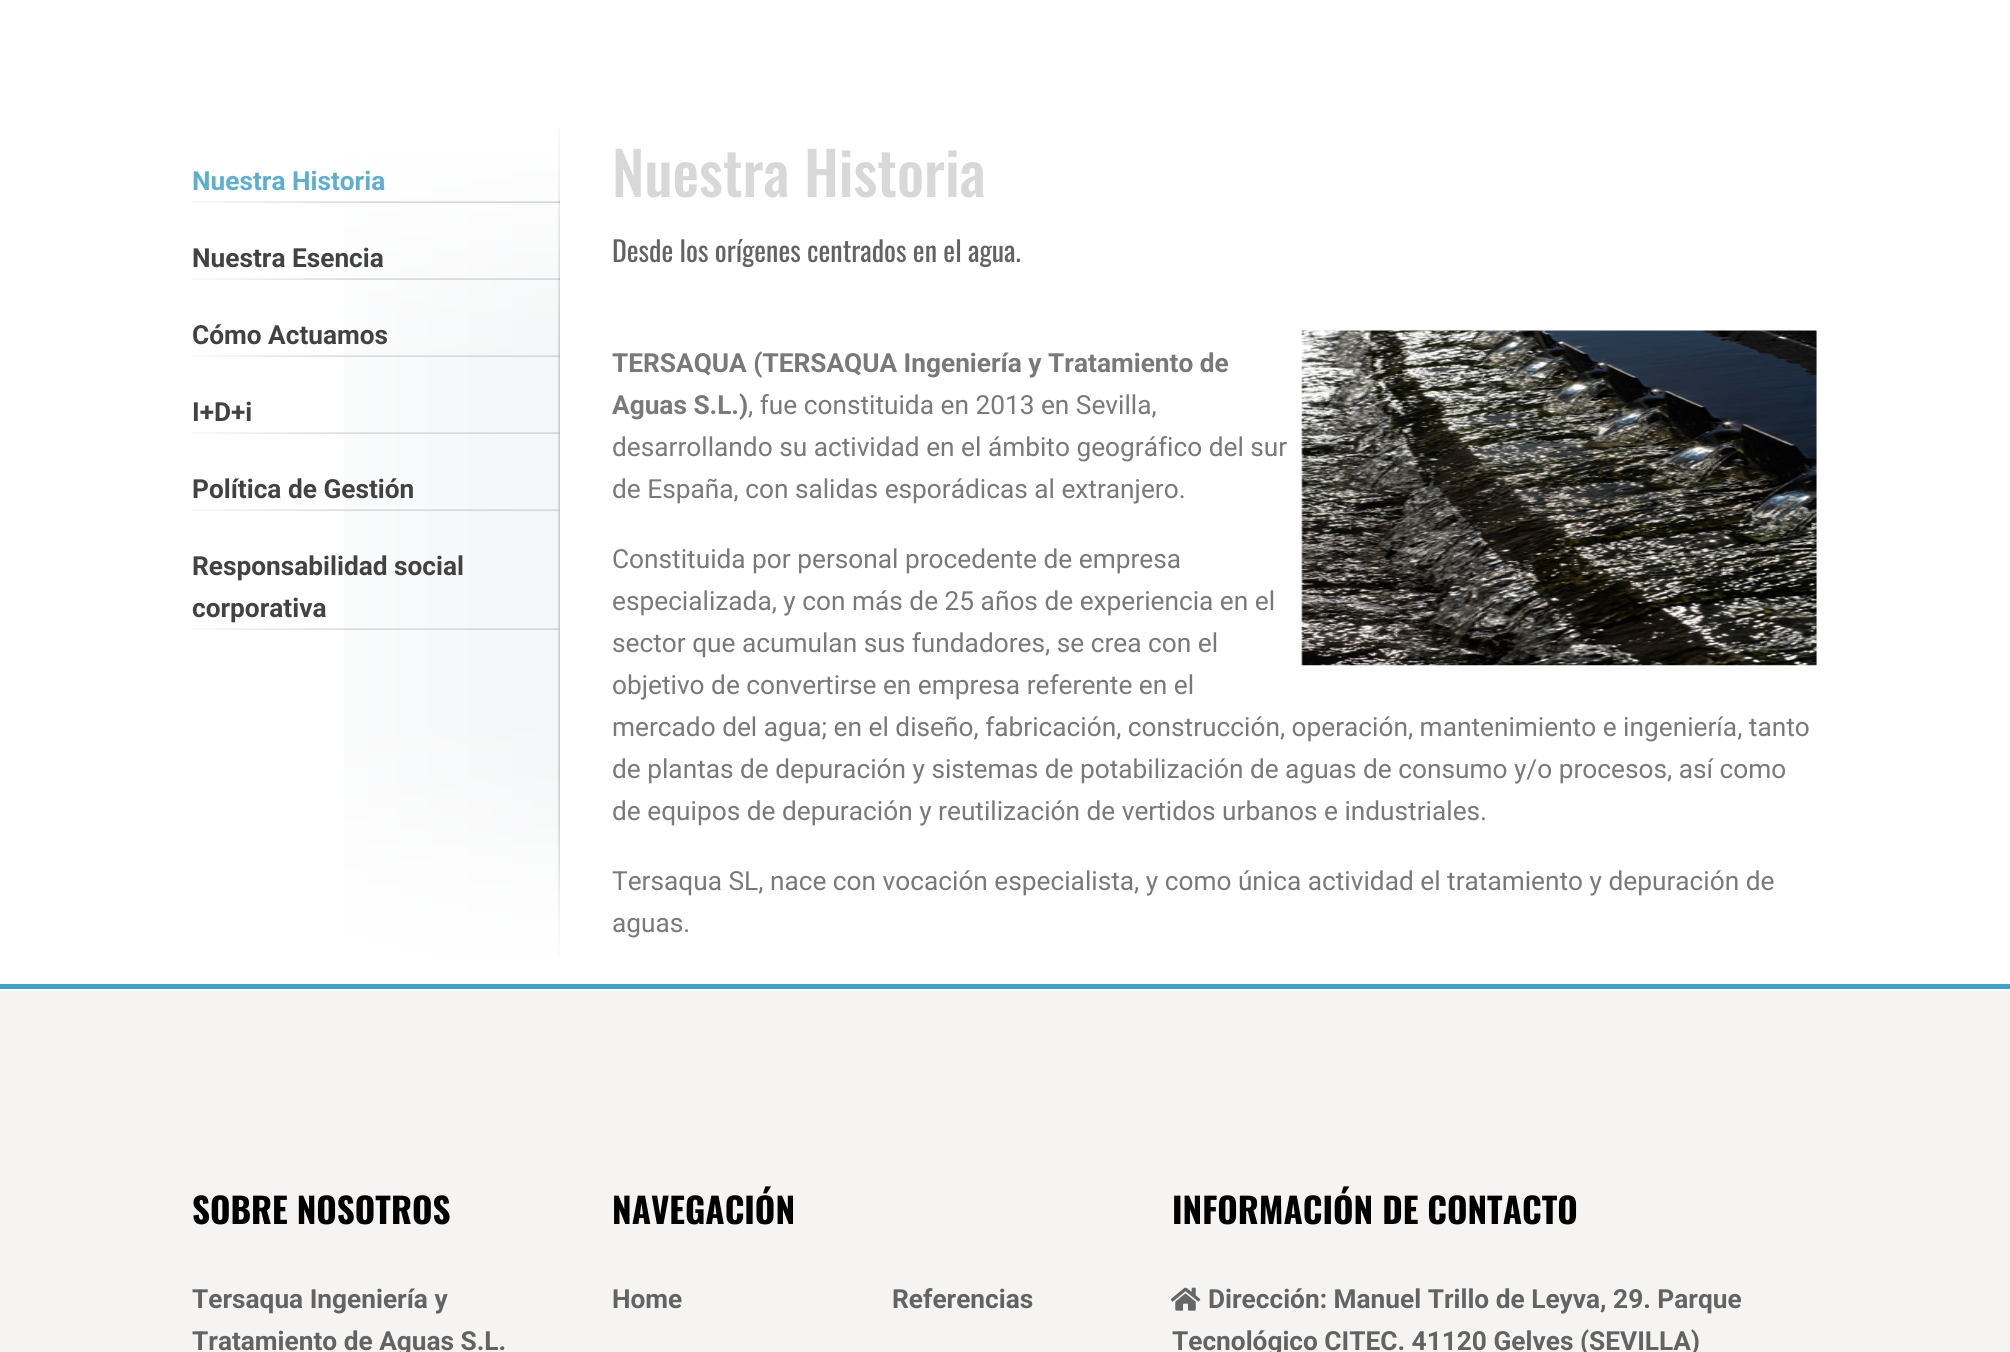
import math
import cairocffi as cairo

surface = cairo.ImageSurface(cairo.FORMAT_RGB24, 2010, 1352)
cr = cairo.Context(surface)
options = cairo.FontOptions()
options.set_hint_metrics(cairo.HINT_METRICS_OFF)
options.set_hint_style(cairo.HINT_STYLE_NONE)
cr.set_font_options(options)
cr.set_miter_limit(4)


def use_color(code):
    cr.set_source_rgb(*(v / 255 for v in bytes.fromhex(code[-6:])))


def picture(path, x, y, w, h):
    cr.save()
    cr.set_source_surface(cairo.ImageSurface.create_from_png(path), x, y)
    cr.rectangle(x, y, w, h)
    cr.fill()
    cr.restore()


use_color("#ffffff")
cr.paint()
picture("img1.png", 344, 127, 216, 829)
picture("img2.png", 192, 201, 368, 2)
cr.select_font_face("Roboto", cairo.FONT_SLANT_NORMAL, cairo.FONT_WEIGHT_BOLD)
cr.set_font_size(26.25)
use_color("#5eafcd")
cr.move_to(192, 190)
cr.show_text("Nuestra Historia")
picture("img3.png", 192, 278, 368, 2)
use_color("#434242")
cr.move_to(192, 267)
cr.show_text("Nuestra Esencia")
picture("img4.png", 192, 355, 368, 2)
cr.move_to(192, 344)
cr.show_text("Cómo Actuamos")
picture("img5.png", 192, 432, 368, 2)
cr.move_to(192, 421)
cr.show_text("I+D+i")
picture("img5.png", 192, 509, 368, 2)
cr.move_to(192, 498)
cr.show_text("Política de Gestión")
picture("img5.png", 192, 628, 368, 2)
cr.move_to(192, 575)
cr.show_text("Responsabilidad social")
cr.move_to(192, 617)
cr.show_text("corporativa")
cr.select_font_face("Oswald Medium")
cr.set_font_size(59.5)
use_color("#d8d8d8")
cr.move_to(612, 197)
cr.show_text("Nuestra Historia")
cr.select_font_face("Oswald")
cr.set_font_size(28)
use_color("#626363")
cr.move_to(612, 262)
cr.show_text("Desde los orígenes centrados en el agua.")
cr.select_font_face("Roboto", cairo.FONT_SLANT_NORMAL, cairo.FONT_WEIGHT_BOLD)
cr.set_font_size(26.25)
use_color("#797979")
cr.move_to(612, 372)
cr.show_text("TERSAQUA (TERSAQUA Ingeniería y Tratamiento de")
cr.move_to(612, 414)
cr.show_text("Aguas S.L.)")
cr.select_font_face("Roboto")
cr.move_to(748, 414)
cr.show_text(", fue constituida en 2013 en Sevilla,")
cr.move_to(612, 456)
cr.show_text("desarrollando su actividad en el ámbito geográfico del sur")
cr.move_to(612, 498)
cr.show_text("de España, con salidas esporádicas al extranjero.")
picture("img6.png", 1301, 330, 516, 336)
cr.move_to(612, 568)
cr.show_text("Constituida por personal procedente de empresa")
cr.move_to(612, 610)
cr.show_text("especializada, y con más de 25 años de experiencia en el")
cr.move_to(612, 652)
cr.show_text("sector que acumulan sus fundadores, se crea con el")
cr.move_to(612, 694)
cr.show_text("objetivo de convertirse en empresa referente en el")
cr.move_to(612, 736)
cr.show_text("mercado del agua; en el diseño, fabricación, construcción, operación, mantenimiento e ingeniería, tanto")
cr.move_to(612, 778)
cr.show_text("de plantas de depuración y sistemas de potabilización de aguas de consumo y/o procesos, así como")
cr.move_to(612, 820)
cr.show_text("de equipos de depuración y reutilización de vertidos urbanos e industriales.")
cr.move_to(612, 890)
cr.show_text("Tersaqua SL, nace con vocación especialista, y como única actividad el tratamiento y depuración de")
cr.move_to(612, 932)
cr.show_text("aguas.")
use_color("#3fa3c9")
cr.rectangle(0, 984, 2010, 5)
cr.fill()
use_color("#f6f3f3")
cr.rectangle(0, 991, 2010, 361)
cr.fill()
cr.select_font_face("Oswald", cairo.FONT_SLANT_NORMAL, cairo.FONT_WEIGHT_BOLD)
cr.set_font_size(35)
use_color("#000000")
cr.move_to(192, 1224)
cr.show_text("SOBRE NOSOTROS")
cr.select_font_face("Roboto", cairo.FONT_SLANT_NORMAL, cairo.FONT_WEIGHT_BOLD)
cr.set_font_size(26.25)
use_color("#626363")
cr.move_to(192, 1308)
cr.show_text("Tersaqua Ingeniería y")
cr.move_to(192, 1350)
cr.show_text("Tratamiento de Aguas S.L.")
cr.select_font_face("Oswald", cairo.FONT_SLANT_NORMAL, cairo.FONT_WEIGHT_BOLD)
cr.set_font_size(35)
use_color("#000000")
cr.move_to(612, 1224)
cr.show_text("NAVEGACIÓN")
cr.select_font_face("Roboto", cairo.FONT_SLANT_NORMAL, cairo.FONT_WEIGHT_BOLD)
cr.set_font_size(26.25)
use_color("#626363")
cr.move_to(612, 1308)
cr.show_text("Home")
cr.move_to(892, 1308)
cr.show_text("Referencias")
cr.select_font_face("Oswald", cairo.FONT_SLANT_NORMAL, cairo.FONT_WEIGHT_BOLD)
cr.set_font_size(35)
use_color("#000000")
cr.move_to(1172, 1224)
cr.show_text("INFORMACIÓN DE CONTACTO")
picture("img7.png", 1170, 1287, 31, 24)
cr.select_font_face("Roboto", cairo.FONT_SLANT_NORMAL, cairo.FONT_WEIGHT_BOLD)
cr.set_font_size(26.25)
use_color("#626363")
cr.move_to(1208, 1308)
cr.show_text("Dirección: Manuel Trillo de Leyva, 29. Parque")
cr.move_to(1172, 1350)
cr.show_text("Tecnológico CITEC. 41120 Gelves (SEVILLA)")
surface.write_to_png("result.png")
